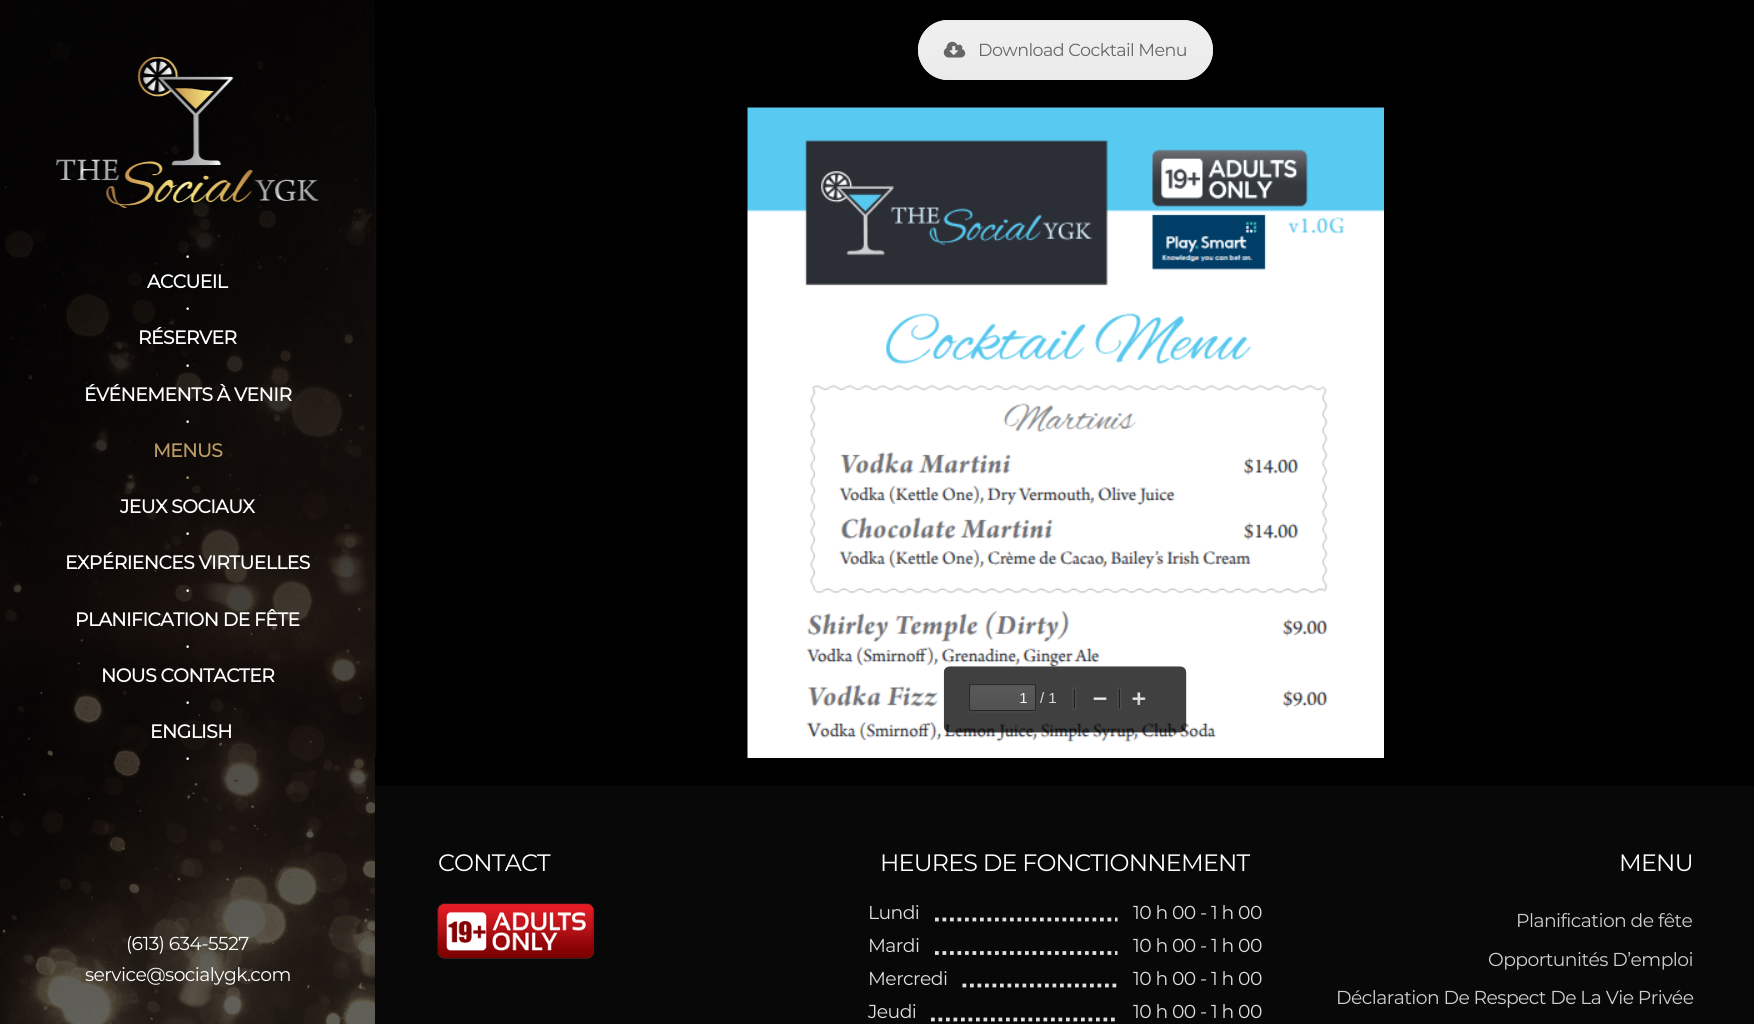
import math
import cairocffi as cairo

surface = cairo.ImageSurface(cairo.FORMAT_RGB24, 1754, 1024)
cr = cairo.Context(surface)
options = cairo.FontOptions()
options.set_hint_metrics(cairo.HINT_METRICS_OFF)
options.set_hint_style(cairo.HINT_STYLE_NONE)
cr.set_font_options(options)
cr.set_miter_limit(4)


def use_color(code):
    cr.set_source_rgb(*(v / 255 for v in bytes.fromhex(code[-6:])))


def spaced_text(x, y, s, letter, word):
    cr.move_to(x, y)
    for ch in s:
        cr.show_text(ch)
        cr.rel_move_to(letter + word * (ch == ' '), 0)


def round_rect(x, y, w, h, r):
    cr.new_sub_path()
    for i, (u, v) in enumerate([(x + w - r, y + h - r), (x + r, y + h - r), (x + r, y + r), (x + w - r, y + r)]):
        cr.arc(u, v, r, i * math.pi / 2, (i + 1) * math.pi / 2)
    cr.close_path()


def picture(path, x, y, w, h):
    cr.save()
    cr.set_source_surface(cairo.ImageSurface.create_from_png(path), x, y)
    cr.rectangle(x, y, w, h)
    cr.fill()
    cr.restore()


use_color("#000000")
cr.paint()
use_color("#ebebeb")
round_rect(918, 20, 295, 60, 30)
cr.fill()
cr.save()
round_rect(918, 20, 295, 60, 30)
cr.clip()
gradient = cairo.LinearGradient(1065, 21, 1065, 79)
gradient.add_color_stop_rgba(0, 1, 1, 1, 0.2)
gradient.add_color_stop_rgba(1, 1, 1, 1, 0.01)
cr.set_source(gradient)
cr.rectangle(918, 21, 295, 54)
cr.fill()
cr.restore()
round_rect(918.5, 20.5, 294, 59, 29.5)
cr.set_line_width(1)
cr.stroke()
picture("img1.png", 943, 41, 23, 17)
cr.select_font_face("Montserrat")
cr.set_font_size(17.5)
use_color("#666666")
spaced_text(978, 56, "Download Cocktail Menu", -0.55, 0)
picture("img2.png", 375, 107, 1009, 651)
picture("img3.png", 0, 0, 375, 1024)
picture("img4.png", 56, 57, 263, 151)
cr.select_font_face("Montserrat", cairo.FONT_SLANT_NORMAL, cairo.FONT_WEIGHT_BOLD)
cr.set_font_size(18.75)
use_color("#ffffff")
cr.move_to(185, 262)
cr.show_text("·")
spaced_text(147, 288, "ACCUEIL", -0.55, 0)
spaced_text(185, 314, "·", -0.55, 0)
spaced_text(138, 344, "RÉSERVER", -0.55, 0)
spaced_text(185, 371, "·", -0.55, 0)
spaced_text(84, 401, "ÉVÉNEMENTS À VENIR", -0.55, 0)
spaced_text(185, 427, "·", -0.55, 0)
use_color("#ba9a65")
spaced_text(153, 457, "MENUS", -0.55, 0)
spaced_text(185, 483, "·", -0.55, 0)
use_color("#ffffff")
spaced_text(120, 513, "JEUX SOCIAUX", -0.55, 0)
spaced_text(185, 539, "·", -0.55, 0)
spaced_text(65, 569, "EXPÉRIENCES VIRTUELLES", -0.55, 0)
spaced_text(185, 596, "·", -0.55, 0)
spaced_text(75, 626, "PLANIFICATION DE FÊTE", -0.55, 0)
spaced_text(185, 652, "·", -0.55, 0)
spaced_text(101, 682, "NOUS CONTACTER", -0.55, 0)
spaced_text(185, 708, "·", -0.55, 0)
spaced_text(150, 738, "ENGLISH", -0.55, 0)
spaced_text(185, 764, "·", -0.55, 0)
cr.select_font_face("Montserrat")
spaced_text(126, 950, "(613) 634-5527", -0.55, 0)
spaced_text(85, 981, "service@socialygk.com", -0.55, 0)
use_color("#080808")
cr.rectangle(375, 786, 1379, 238)
cr.fill()
cr.set_font_size(23.75)
use_color("#ffffff")
spaced_text(438, 871, "CONTACT", -0.75, 0)
picture("img5.png", 437, 903, 157, 56)
spaced_text(880, 871, "HEURES DE FONCTIONNEMENT", -0.75, 0)
cr.set_font_size(18.75)
use_color("#dfdfdf")
spaced_text(868, 919, "Lundi", -0.55, 0)
cr.new_path()
cr.move_to(935, 919.5)
cr.line_to(1117.5, 919.5)
cr.set_line_width(3.8)
cr.set_dash([3.75, 3.75])
cr.stroke()
spaced_text(1133, 919, "10 h 00 - 1 h 00", -0.55, 0)
spaced_text(868, 952, "Mardi", -0.55, 0)
cr.new_path()
cr.move_to(935, 953)
cr.line_to(1117.5, 953)
cr.stroke()
spaced_text(1133, 952, "10 h 00 - 1 h 00", -0.55, 0)
spaced_text(868, 985, "Mercredi", -0.55, 0)
cr.new_path()
cr.move_to(962.5, 985.5)
cr.line_to(1117.5, 985.5)
cr.stroke()
spaced_text(1133, 985, "10 h 00 - 1 h 00", -0.55, 0)
spaced_text(868, 1018, "Jeudi", -0.55, 0)
spaced_text(1133, 1018, "10 h 00 - 1 h 00", -0.55, 0)
cr.new_path()
cr.move_to(931, 1019.5)
cr.line_to(1117.5, 1019.5)
cr.stroke()
cr.set_font_size(23.75)
use_color("#ffffff")
spaced_text(1619, 871, "MENU", -0.75, 0)
cr.set_font_size(18.75)
use_color("#cecece")
spaced_text(1516, 927, "Planification de fête", -0.55, 0)
spaced_text(1488, 966, "Opportunités D’emploi", -0.55, 0)
spaced_text(1336, 1004, "Déclaration De Respect De La Vie Privée", -0.55, 0)
surface.write_to_png("result.png")
